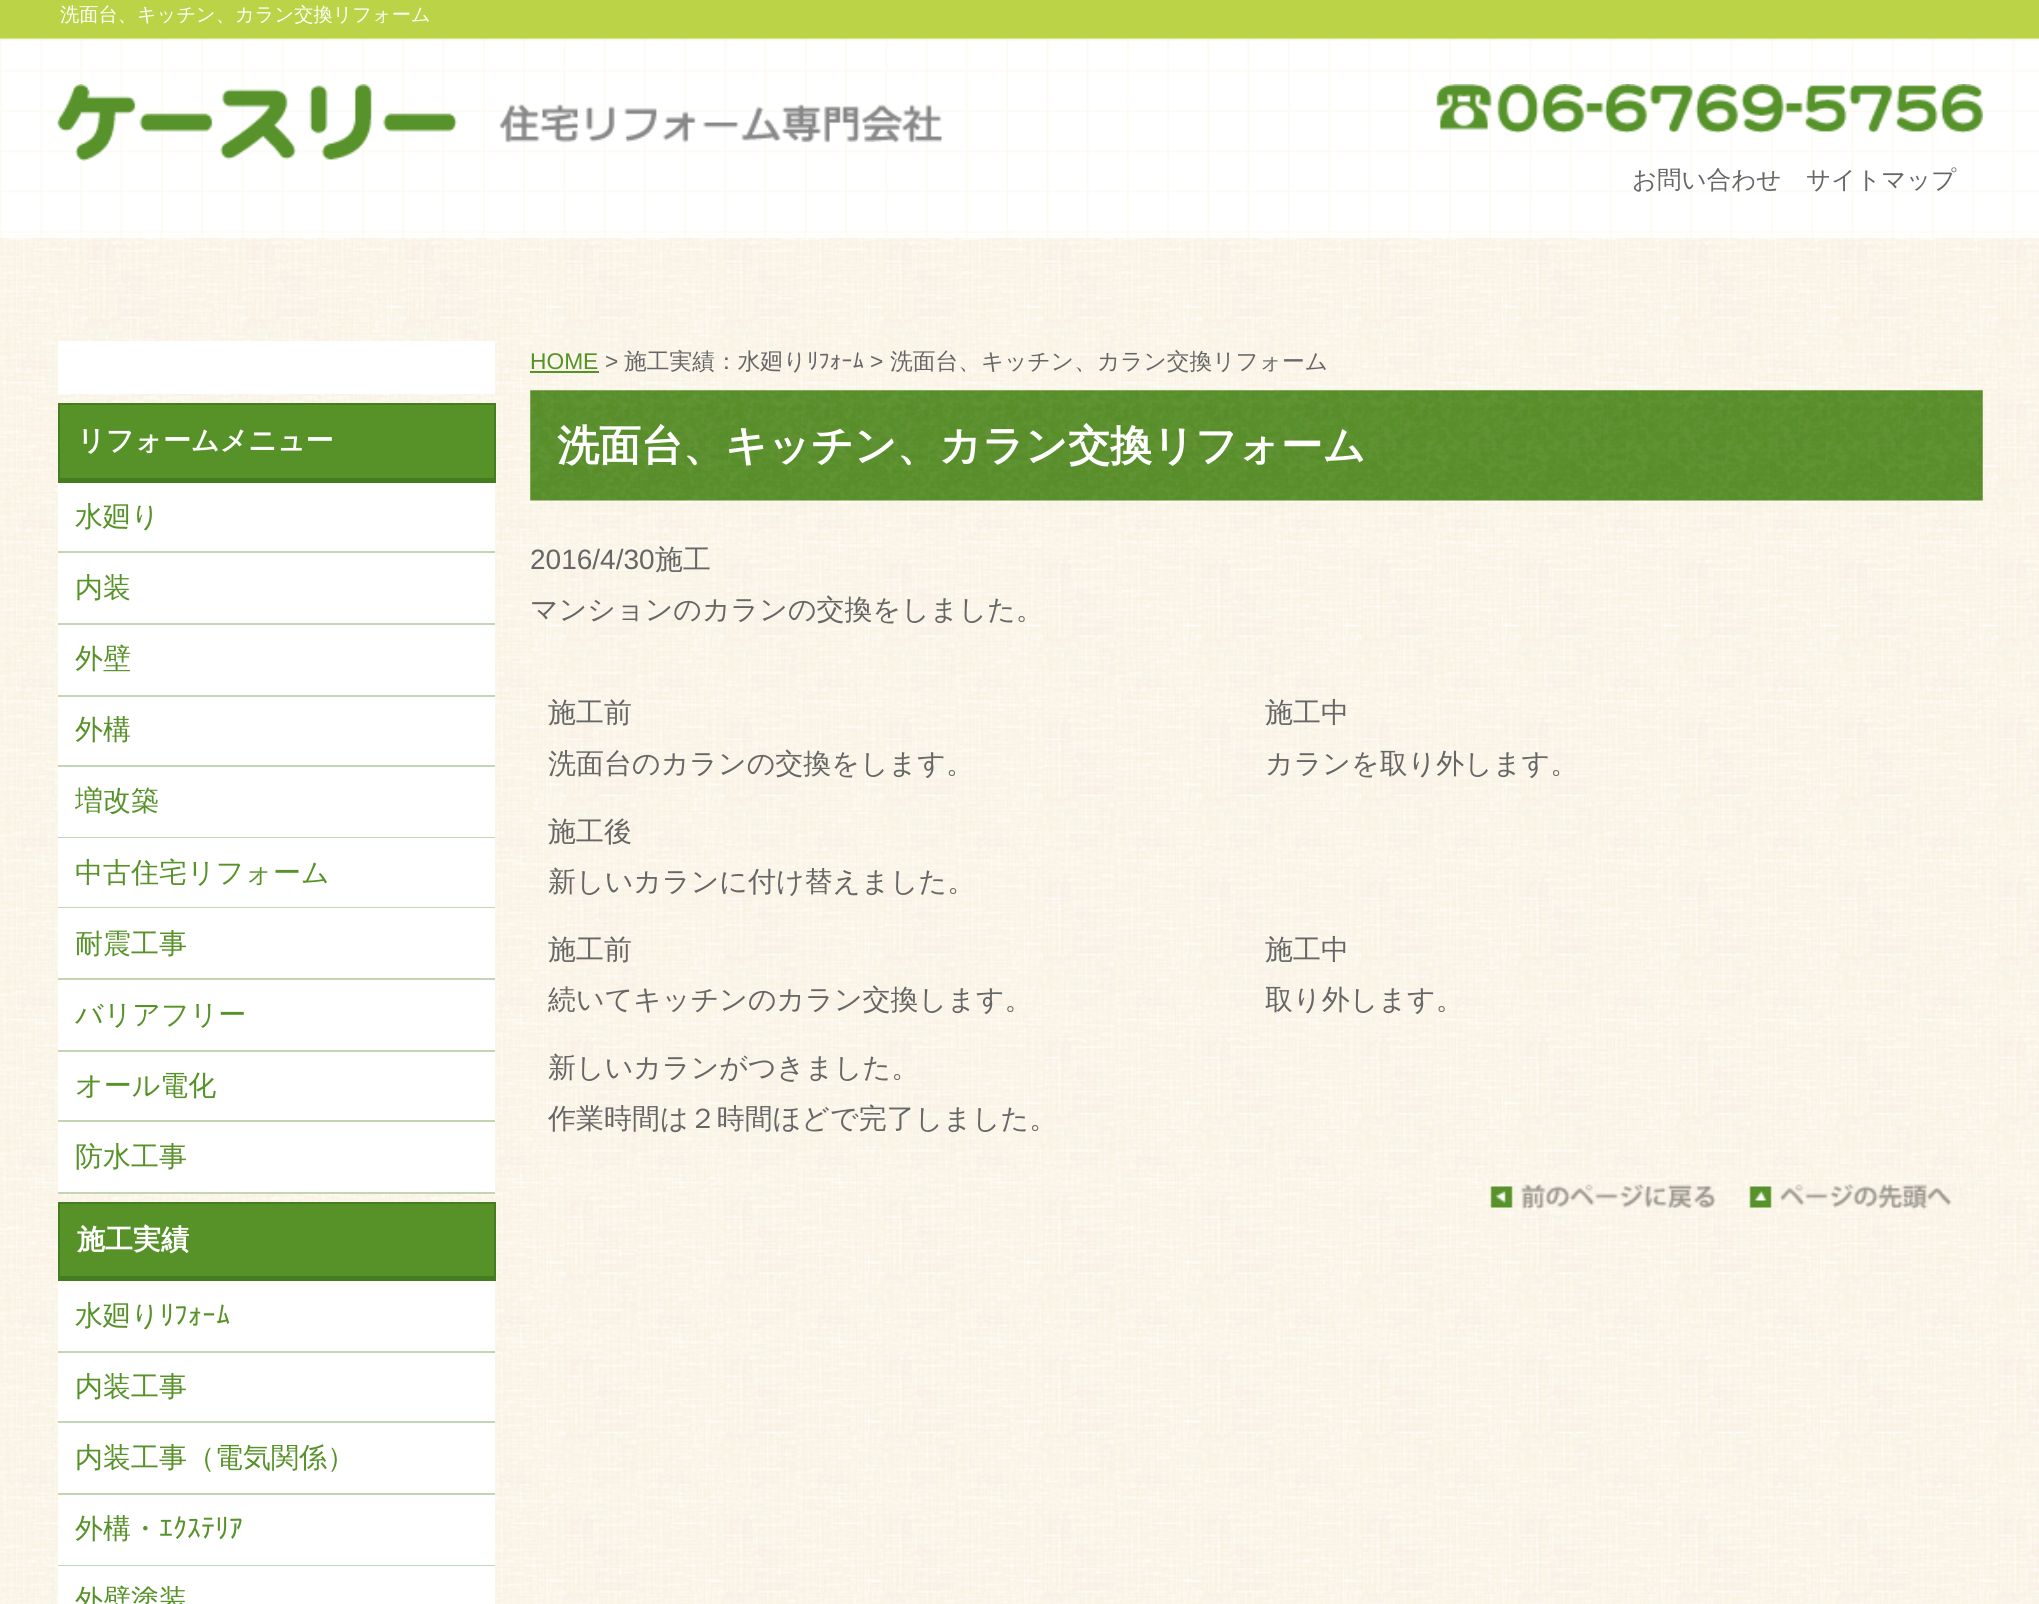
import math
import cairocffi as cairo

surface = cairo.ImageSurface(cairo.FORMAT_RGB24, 2039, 1604)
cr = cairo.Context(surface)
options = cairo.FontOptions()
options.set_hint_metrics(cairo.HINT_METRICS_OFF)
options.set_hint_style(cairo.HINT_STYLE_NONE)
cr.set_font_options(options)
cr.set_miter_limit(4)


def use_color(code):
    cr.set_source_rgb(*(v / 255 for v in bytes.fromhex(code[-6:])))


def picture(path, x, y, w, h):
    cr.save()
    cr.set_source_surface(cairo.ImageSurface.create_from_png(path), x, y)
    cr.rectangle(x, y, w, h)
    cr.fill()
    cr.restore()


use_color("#ffffff")
cr.paint()
picture("img1.png", 0, 238, 2039, 1366)
picture("img2.png", 0, 0, 2039, 238)
cr.select_font_face("WenQuanYi Zen Hei Medium")
cr.set_font_size(19.25)
use_color("#ffffff")
cr.move_to(60, 21)
cr.show_text("洗面台、キッチン、カラン交換リフォーム")
picture("img3.png", 57, 84, 885, 77)
picture("img4.png", 1436, 84, 547, 49)
cr.set_font_size(24.5)
use_color("#666666")
cr.move_to(1632, 188)
cr.show_text("お問い合わせ")
cr.move_to(1806, 188)
cr.show_text("サイトマップ")
use_color("#ffffff")
cr.rectangle(58, 341, 437, 53)
cr.fill()
use_color("#579229")
cr.rectangle(60, 405, 434, 73)
cr.fill()
use_color("#447c1f")
cr.rectangle(58, 403, 437, 2)
cr.fill()
cr.rectangle(494, 403, 2, 80)
cr.fill()
cr.rectangle(58, 478, 437, 5)
cr.fill()
cr.rectangle(58, 403, 2, 80)
cr.fill()
cr.select_font_face("WenQuanYi Zen Hei", cairo.FONT_SLANT_NORMAL, cairo.FONT_WEIGHT_BOLD)
cr.set_font_size(28)
use_color("#ffffff")
cr.move_to(77, 450)
cr.show_text("リフォームメニュー")
cr.rectangle(58, 483, 437, 68)
cr.fill()
use_color("#c2d7b1")
cr.rectangle(58, 551, 437, 2)
cr.fill()
cr.select_font_face("WenQuanYi Zen Hei Medium")
use_color("#579229")
cr.move_to(75, 526)
cr.show_text("水廻り")
use_color("#ffffff")
cr.rectangle(58, 553, 437, 70)
cr.fill()
use_color("#c2d7b1")
cr.rectangle(58, 623, 437, 2)
cr.fill()
use_color("#579229")
cr.move_to(75, 597)
cr.show_text("内装")
use_color("#ffffff")
cr.rectangle(58, 625, 437, 70)
cr.fill()
use_color("#c2d7b1")
cr.rectangle(58, 695, 437, 2)
cr.fill()
use_color("#579229")
cr.move_to(75, 668)
cr.show_text("外壁")
use_color("#ffffff")
cr.rectangle(58, 697, 437, 68)
cr.fill()
use_color("#c2d7b1")
cr.rectangle(58, 765, 437, 2)
cr.fill()
use_color("#579229")
cr.move_to(75, 739)
cr.show_text("外構")
use_color("#ffffff")
cr.rectangle(58, 767, 437, 70)
cr.fill()
use_color("#c2d7b1")
cr.rectangle(58, 837, 437, 1)
cr.fill()
use_color("#579229")
cr.move_to(75, 810)
cr.show_text("増改築")
use_color("#ffffff")
cr.rectangle(58, 838, 437, 69)
cr.fill()
use_color("#c2d7b1")
cr.rectangle(58, 907, 437, 1)
cr.fill()
use_color("#579229")
cr.move_to(75, 882)
cr.show_text("中古住宅リフォーム")
use_color("#ffffff")
cr.rectangle(58, 908, 437, 70)
cr.fill()
use_color("#c2d7b1")
cr.rectangle(58, 978, 437, 2)
cr.fill()
use_color("#579229")
cr.move_to(75, 953)
cr.show_text("耐震工事")
use_color("#ffffff")
cr.rectangle(58, 980, 437, 70)
cr.fill()
use_color("#c2d7b1")
cr.rectangle(58, 1050, 437, 2)
cr.fill()
use_color("#579229")
cr.move_to(75, 1024)
cr.show_text("バリアフリー")
use_color("#ffffff")
cr.rectangle(58, 1052, 437, 68)
cr.fill()
use_color("#c2d7b1")
cr.rectangle(58, 1120, 437, 2)
cr.fill()
use_color("#579229")
cr.move_to(75, 1095)
cr.show_text("オール電化")
use_color("#ffffff")
cr.rectangle(58, 1122, 437, 70)
cr.fill()
use_color("#c2d7b1")
cr.rectangle(58, 1192, 437, 2)
cr.fill()
use_color("#579229")
cr.move_to(75, 1166)
cr.show_text("防水工事")
cr.rectangle(60, 1204, 434, 72)
cr.fill()
use_color("#447c1f")
cr.rectangle(58, 1202, 437, 2)
cr.fill()
cr.rectangle(494, 1202, 2, 79)
cr.fill()
cr.rectangle(58, 1276, 437, 5)
cr.fill()
cr.rectangle(58, 1202, 2, 79)
cr.fill()
cr.select_font_face("WenQuanYi Zen Hei", cairo.FONT_SLANT_NORMAL, cairo.FONT_WEIGHT_BOLD)
use_color("#ffffff")
cr.move_to(77, 1249)
cr.show_text("施工実績")
cr.rectangle(58, 1281, 437, 70)
cr.fill()
use_color("#c2d7b1")
cr.rectangle(58, 1351, 437, 2)
cr.fill()
cr.select_font_face("WenQuanYi Zen Hei Medium")
use_color("#579229")
cr.move_to(75, 1325)
cr.show_text("水廻り")
cr.select_font_face("IPAPGothic")
cr.move_to(160, 1325)
cr.show_text("ﾘﾌｫｰﾑ")
use_color("#ffffff")
cr.rectangle(58, 1353, 437, 68)
cr.fill()
use_color("#c2d7b1")
cr.rectangle(58, 1421, 437, 2)
cr.fill()
cr.select_font_face("WenQuanYi Zen Hei Medium")
use_color("#579229")
cr.move_to(75, 1396)
cr.show_text("内装工事")
use_color("#ffffff")
cr.rectangle(58, 1423, 437, 70)
cr.fill()
use_color("#c2d7b1")
cr.rectangle(58, 1493, 437, 2)
cr.fill()
use_color("#579229")
cr.move_to(75, 1467)
cr.show_text("内装工事（電気関係）")
use_color("#ffffff")
cr.rectangle(58, 1495, 437, 70)
cr.fill()
use_color("#c2d7b1")
cr.rectangle(58, 1565, 437, 1)
cr.fill()
use_color("#579229")
cr.move_to(75, 1538)
cr.show_text("外構・")
cr.select_font_face("IPAPGothic")
cr.move_to(159, 1538)
cr.show_text("ｴｸｽﾃﾘｱ")
use_color("#ffffff")
cr.rectangle(58, 1566, 437, 38)
cr.fill()
cr.select_font_face("WenQuanYi Zen Hei Medium")
use_color("#579229")
cr.move_to(75, 1609)
cr.show_text("外壁塗装")
cr.select_font_face("Liberation Sans")
cr.set_font_size(22.75)
cr.move_to(530, 369)
cr.show_text("HOME")
cr.rectangle(530, 371, 69, 2)
cr.fill()
use_color("#666666")
cr.move_to(605, 369)
cr.show_text(">")
cr.select_font_face("WenQuanYi Zen Hei Medium")
cr.move_to(624, 369)
cr.show_text("施工実績：水廻り")
cr.select_font_face("IPAPGothic")
cr.move_to(807, 369)
cr.show_text("ﾘﾌｫｰﾑ")
cr.select_font_face("Liberation Sans")
cr.move_to(870, 369)
cr.show_text(">")
cr.select_font_face("WenQuanYi Zen Hei Medium")
cr.move_to(890, 369)
cr.show_text("洗面台、キッチン、カラン交換リフォーム")
picture("img5.png", 530, 390, 1453, 111)
cr.select_font_face("WenQuanYi Zen Hei", cairo.FONT_SLANT_NORMAL, cairo.FONT_WEIGHT_BOLD)
cr.set_font_size(42)
use_color("#ffffff")
cr.move_to(557, 460)
cr.show_text("洗面台、キッチン、カラン交換リフォーム")
cr.select_font_face("Liberation Sans")
cr.set_font_size(28)
use_color("#666666")
cr.move_to(530, 569)
cr.show_text("2016/4/30")
cr.select_font_face("WenQuanYi Zen Hei Medium")
cr.move_to(655, 569)
cr.show_text("施工")
cr.move_to(530, 619)
cr.show_text("マンションのカランの交換をしました。")
cr.move_to(548, 722)
cr.show_text("施工前")
cr.move_to(548, 773)
cr.show_text("洗面台のカランの交換をします。")
cr.move_to(1265, 722)
cr.show_text("施工中")
cr.move_to(1265, 773)
cr.show_text("カランを取り外します。")
cr.move_to(548, 841)
cr.show_text("施工後")
cr.move_to(548, 891)
cr.show_text("新しいカランに付け替えました。")
cr.move_to(548, 959)
cr.show_text("施工前")
cr.move_to(548, 1009)
cr.show_text("続いてキッチンのカラン交換します。")
cr.move_to(1265, 959)
cr.show_text("施工中")
cr.move_to(1265, 1009)
cr.show_text("取り外します。")
cr.move_to(548, 1077)
cr.show_text("新しいカランがつきました。")
cr.move_to(548, 1128)
cr.show_text("作業時間は２時間ほどで完了しました。")
picture("img6.png", 1482, 1179, 242, 36)
picture("img7.png", 1482, 1179, 242, 36)
picture("img8.png", 1741, 1179, 242, 36)
picture("img9.png", 1741, 1179, 242, 36)
surface.write_to_png("result.png")
